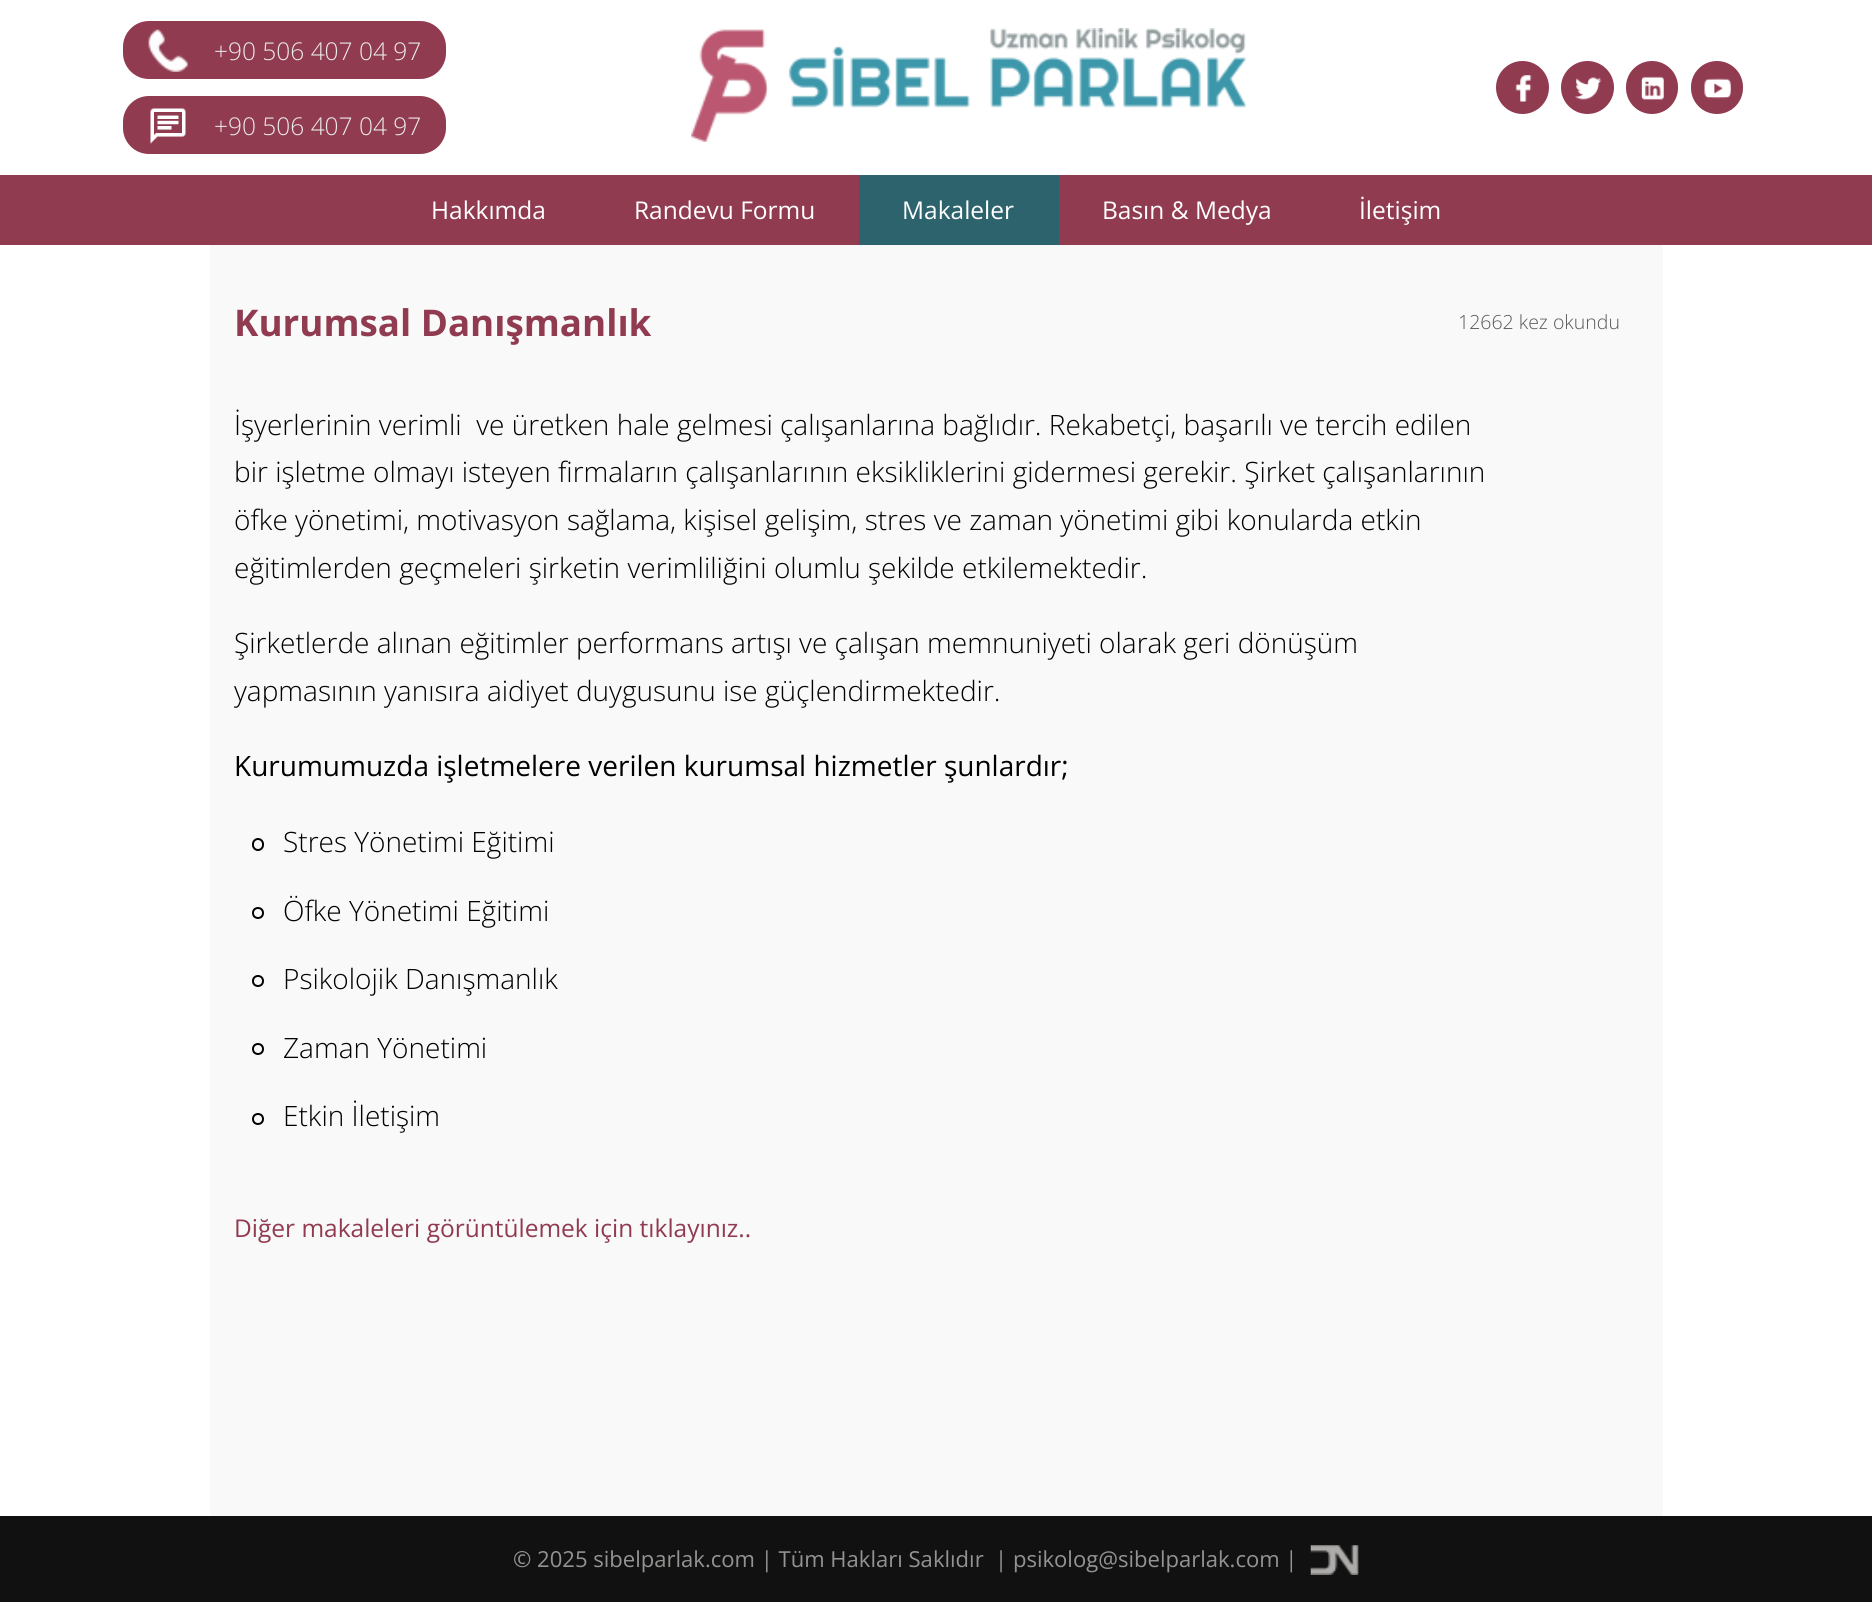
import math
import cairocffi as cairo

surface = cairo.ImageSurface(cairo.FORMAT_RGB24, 1872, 1602)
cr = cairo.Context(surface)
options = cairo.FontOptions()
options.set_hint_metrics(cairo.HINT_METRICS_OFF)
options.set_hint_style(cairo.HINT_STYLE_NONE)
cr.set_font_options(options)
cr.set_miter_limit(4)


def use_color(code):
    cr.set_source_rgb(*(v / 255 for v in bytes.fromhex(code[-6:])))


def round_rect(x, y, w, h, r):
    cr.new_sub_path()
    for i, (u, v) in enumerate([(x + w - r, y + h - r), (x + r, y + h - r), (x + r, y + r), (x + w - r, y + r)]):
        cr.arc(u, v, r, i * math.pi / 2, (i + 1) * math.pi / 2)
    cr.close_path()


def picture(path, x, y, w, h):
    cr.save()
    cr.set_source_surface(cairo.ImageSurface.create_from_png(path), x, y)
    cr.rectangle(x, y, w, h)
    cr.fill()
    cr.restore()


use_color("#ffffff")
cr.paint()
use_color("#913b51")
round_rect(123, 21, 323, 58, 26)
cr.fill()
picture("img1.png", 148, 29, 41, 43)
cr.select_font_face("Open Sans Light")
cr.set_font_size(24.5)
use_color("#eaeaea")
cr.move_to(214, 60)
cr.show_text("+90 506 407 04 97")
use_color("#913b51")
round_rect(123, 96, 323, 58, 26)
cr.fill()
picture("img2.png", 150, 108, 36, 36)
use_color("#eaeaea")
cr.move_to(214, 135)
cr.show_text("+90 506 407 04 97")
picture("img3.png", 691, 28, 555, 114)
use_color("#913b51")
cr.arc(1522.5, 87.5, 26.5, 0, 2 * math.pi)
cr.fill()
picture("img4.png", 1515, 75, 17, 27)
cr.arc(1587.5, 87.5, 26.5, 0, 2 * math.pi)
cr.fill()
picture("img5.png", 1575, 77, 27, 23)
round_rect(1626, 61, 52, 53, 26)
cr.fill()
picture("img6.png", 1641, 76, 23, 24)
round_rect(1691, 61, 52, 53, 26)
cr.fill()
picture("img7.png", 1704, 78, 27, 21)
cr.rectangle(0, 175, 1872, 70)
cr.fill()
cr.select_font_face("Open Sans")
use_color("#ffffff")
cr.move_to(431, 219)
cr.show_text("Hakkımda")
cr.move_to(634, 219)
cr.show_text("Randevu Formu")
use_color("#2c636d")
cr.rectangle(859, 175, 200, 70)
cr.fill()
use_color("#ffffff")
cr.move_to(902, 219)
cr.show_text("Makaleler")
cr.move_to(1102, 219)
cr.show_text("Basın & Medya")
cr.move_to(1359, 219)
cr.show_text("İletişim")
use_color("#f9f9f9")
cr.rectangle(210, 245, 1453, 1271)
cr.fill()
cr.select_font_face("Open Sans", cairo.FONT_SLANT_NORMAL, cairo.FONT_WEIGHT_BOLD)
cr.set_font_size(36.75)
use_color("#913b51")
cr.move_to(234, 336)
cr.show_text("Kurumsal Danışmanlık")
cr.select_font_face("Open Sans Light")
cr.set_font_size(19.5)
use_color("#575757")
cr.move_to(1458, 329)
cr.show_text("12662 kez okundu")
cr.set_font_size(28)
use_color("#000000")
cr.move_to(234, 435)
cr.show_text("İşyerlerinin verimli  ve üretken hale gelmesi çalışanlarına bağlıdır. Rekabetçi, başarılı ve tercih edilen")
cr.move_to(234, 482)
cr.show_text("bir işletme olmayı isteyen firmaların çalışanlarının eksikliklerini gidermesi gerekir. Şirket çalışanlarının")
cr.move_to(234, 530)
cr.show_text("öfke yönetimi, motivasyon sağlama, kişisel gelişim, stres ve zaman yönetimi gibi konularda etkin")
cr.move_to(234, 578)
cr.show_text("eğitimlerden geçmeleri şirketin verimliliğini olumlu şekilde etkilemektedir.")
cr.move_to(234, 653)
cr.show_text("Şirketlerde alınan eğitimler performans artışı ve çalışan memnuniyeti olarak geri dönüşüm")
cr.move_to(234, 701)
cr.show_text("yapmasının yanısıra aidiyet duygusunu ise güçlendirmektedir.")
cr.select_font_face("Open Sans")
cr.move_to(234, 776)
cr.show_text("Kurumumuzda işletmelere verilen kurumsal hizmetler şunlardır;")
round_rect(253, 839, 10, 11, 5)
cr.stroke()
cr.select_font_face("Open Sans Light")
cr.move_to(283, 852)
cr.show_text("Stres Yönetimi Eğitimi")
cr.new_path()
cr.arc(258, 913, 5, 0, 2 * math.pi)
cr.stroke()
cr.move_to(283, 921)
cr.show_text("Öfke Yönetimi Eğitimi")
cr.new_path()
cr.arc(258, 981, 5, 0, 2 * math.pi)
cr.stroke()
cr.move_to(283, 989)
cr.show_text("Psikolojik Danışmanlık")
cr.new_path()
cr.arc(258, 1049, 5, 0, 2 * math.pi)
cr.stroke()
cr.move_to(283, 1058)
cr.show_text("Zaman Yönetimi")
cr.new_path()
cr.arc(258, 1119, 5, 0, 2 * math.pi)
cr.stroke()
cr.move_to(283, 1126)
cr.show_text("Etkin İletişim")
cr.select_font_face("Open Sans")
cr.set_font_size(24.5)
use_color("#913b51")
cr.move_to(234, 1237)
cr.show_text("Diğer makaleleri görüntülemek için tıklayınız..")
use_color("#111111")
cr.rectangle(0, 1516, 1872, 86)
cr.fill()
cr.set_font_size(22.05)
use_color("#939392")
cr.move_to(513, 1567)
cr.show_text("© 2025 sibelparlak.com | Tüm Hakları Saklıdır  | psikolog@sibelparlak.com |")
picture("img8.png", 1310, 1545, 49, 30)
surface.write_to_png("result.png")
